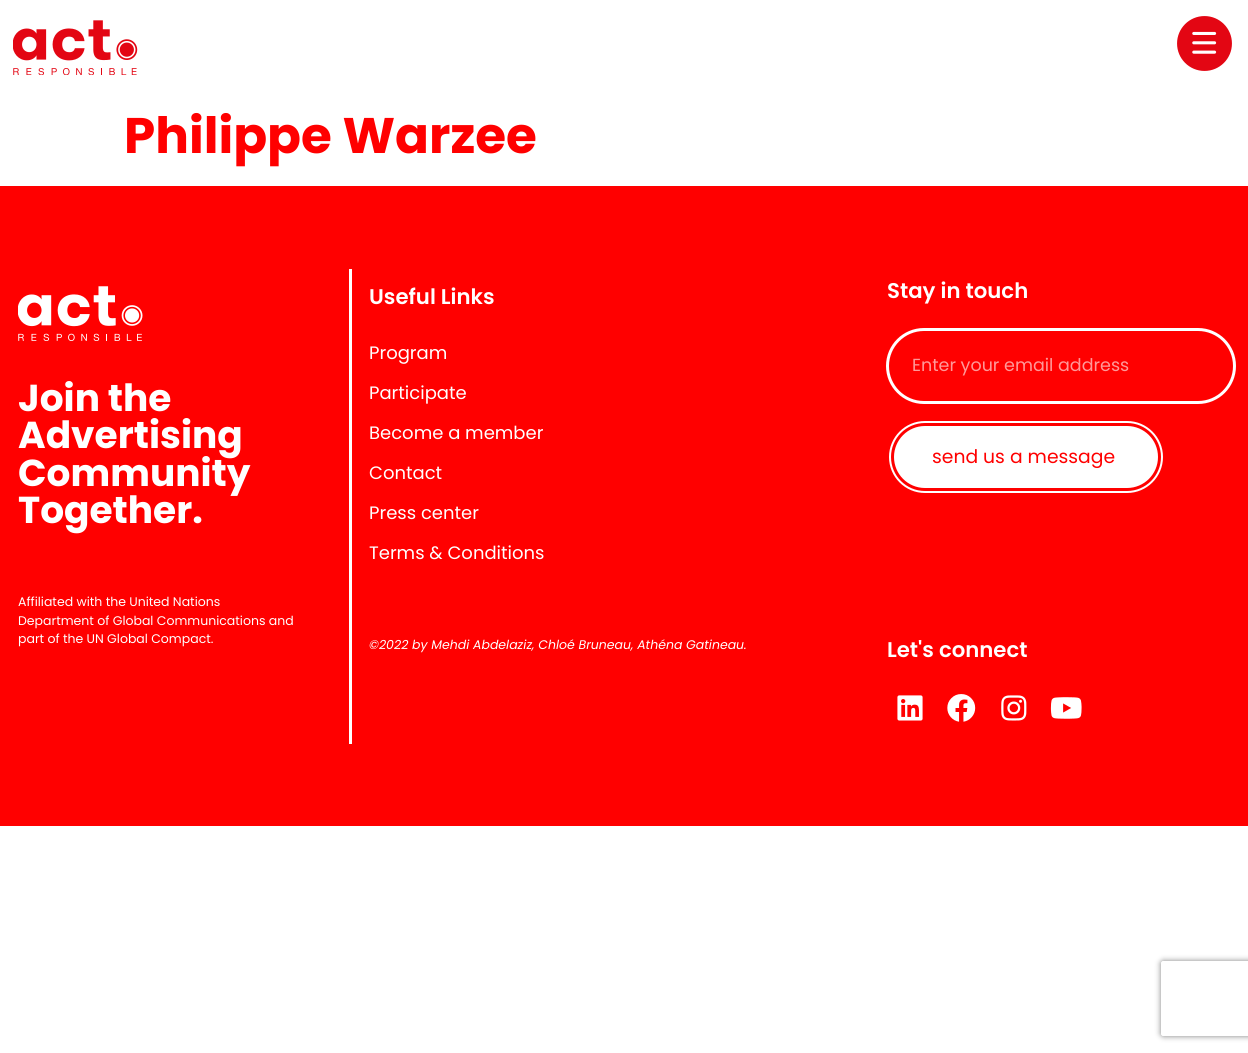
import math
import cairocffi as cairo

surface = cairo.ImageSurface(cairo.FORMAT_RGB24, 1248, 1053)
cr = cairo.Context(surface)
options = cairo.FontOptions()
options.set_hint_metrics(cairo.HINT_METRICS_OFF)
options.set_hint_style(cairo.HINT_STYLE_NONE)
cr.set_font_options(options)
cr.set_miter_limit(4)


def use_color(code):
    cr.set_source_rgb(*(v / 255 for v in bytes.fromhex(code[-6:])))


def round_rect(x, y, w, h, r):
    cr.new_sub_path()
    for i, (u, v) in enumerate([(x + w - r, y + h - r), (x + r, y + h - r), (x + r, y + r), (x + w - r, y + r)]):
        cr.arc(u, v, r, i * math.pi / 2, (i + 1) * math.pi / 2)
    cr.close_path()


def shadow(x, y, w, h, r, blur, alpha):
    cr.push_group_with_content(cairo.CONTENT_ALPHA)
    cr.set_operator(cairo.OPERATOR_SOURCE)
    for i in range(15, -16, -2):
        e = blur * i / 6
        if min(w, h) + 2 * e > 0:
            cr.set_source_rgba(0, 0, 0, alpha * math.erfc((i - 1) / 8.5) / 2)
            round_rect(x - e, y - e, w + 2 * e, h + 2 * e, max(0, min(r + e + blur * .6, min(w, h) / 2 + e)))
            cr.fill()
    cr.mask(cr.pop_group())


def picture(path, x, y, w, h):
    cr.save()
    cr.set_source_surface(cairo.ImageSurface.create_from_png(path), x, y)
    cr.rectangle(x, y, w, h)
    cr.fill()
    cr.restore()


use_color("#ffffff")
cr.paint()
picture("img1.png", 13, 20, 125, 55)
picture("img2.png", 1177, 16, 55, 55)
cr.select_font_face("Poppins", cairo.FONT_SLANT_NORMAL, cairo.FONT_WEIGHT_BOLD)
cr.set_font_size(50)
use_color("#ff0000")
cr.move_to(124, 153)
cr.show_text("Philippe Warzee")
cr.rectangle(0, 186, 1248, 640)
cr.fill()
picture("img3.png", 18, 286, 125, 55)
cr.set_font_size(37.5)
use_color("#ffffff")
cr.move_to(18, 411)
cr.show_text("Join the")
cr.move_to(18, 448)
cr.show_text("Advertising")
cr.move_to(18, 486)
cr.show_text("Community")
cr.move_to(18, 523)
cr.show_text("Together.")
cr.select_font_face("Poppins")
cr.set_font_size(12.5)
cr.move_to(18, 606)
cr.show_text("Affiliated with the United Nations")
cr.move_to(18, 625)
cr.show_text("Department of Global Communications and")
cr.move_to(18, 643)
cr.show_text("part of the UN Global Compact.")
cr.rectangle(349, 269, 3, 475)
cr.fill()
cr.select_font_face("Poppins SemiBold")
cr.set_font_size(21.25)
cr.move_to(369, 304)
cr.show_text("Useful Links")
cr.select_font_face("Poppins")
cr.set_font_size(18)
cr.move_to(369, 359)
cr.show_text("Program")
cr.move_to(369, 399)
cr.show_text("Participate")
cr.move_to(369, 439)
cr.show_text("Become a member")
cr.move_to(369, 479)
cr.show_text("Contact")
cr.move_to(369, 519)
cr.show_text("Press center")
cr.move_to(369, 559)
cr.show_text("Terms & Conditions")
cr.select_font_face("Poppins", cairo.FONT_SLANT_ITALIC)
cr.set_font_size(12.5)
cr.move_to(369, 649)
cr.show_text("©2022 by Mehdi Abdelaziz, Chloé Bruneau, Athéna Gatineau.")
cr.select_font_face("Poppins SemiBold")
cr.set_font_size(21.25)
cr.move_to(887, 298)
cr.show_text("Stay in touch")
round_rect(887.5, 329.5, 347, 73, 36.5)
cr.set_line_width(3)
cr.stroke()
cr.select_font_face("Poppins")
cr.set_font_size(17.5)
use_color("#ff9999")
cr.move_to(912, 371)
cr.show_text("Enter your email address")
use_color("#ffffff")
round_rect(887.5, 419.5, 277, 75, 37.5)
cr.fill_preserve()
use_color("#ff0000")
cr.stroke()
round_rect(892.5, 424.5, 267, 65, 32.5)
cr.stroke()
cr.set_font_size(18.75)
cr.move_to(932, 463)
cr.show_text("send us a message")
cr.save()
cr.set_fill_rule(cairo.FILL_RULE_EVEN_ODD)
cr.new_path()
cr.move_to(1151, 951)
cr.line_to(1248, 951)
cr.line_to(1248, 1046)
cr.line_to(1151, 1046)
cr.close_path()
cr.move_to(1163.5, 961)
cr.line_to(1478.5, 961)
cr.curve_to(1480, 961, 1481, 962, 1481, 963.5)
cr.line_to(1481, 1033.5)
cr.curve_to(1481, 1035, 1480, 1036, 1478.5, 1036)
cr.line_to(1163.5, 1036)
cr.curve_to(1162, 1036, 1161, 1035, 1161, 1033.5)
cr.line_to(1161, 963.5)
cr.curve_to(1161, 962, 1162, 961, 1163.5, 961)
cr.close_path()
cr.clip()
use_color("#808080")
shadow(1161, 961, 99, 75, 2.5, 3, 1)
cr.restore()
cr.select_font_face("Poppins SemiBold")
cr.set_font_size(21.25)
use_color("#ffffff")
cr.move_to(887, 657)
cr.show_text("Let's connect")
picture("img4.png", 897, 695, 26, 26)
picture("img5.png", 947, 694, 29, 28)
picture("img6.png", 1001, 695, 26, 26)
picture("img7.png", 1050, 697, 32, 22)
surface.write_to_png("result.png")
